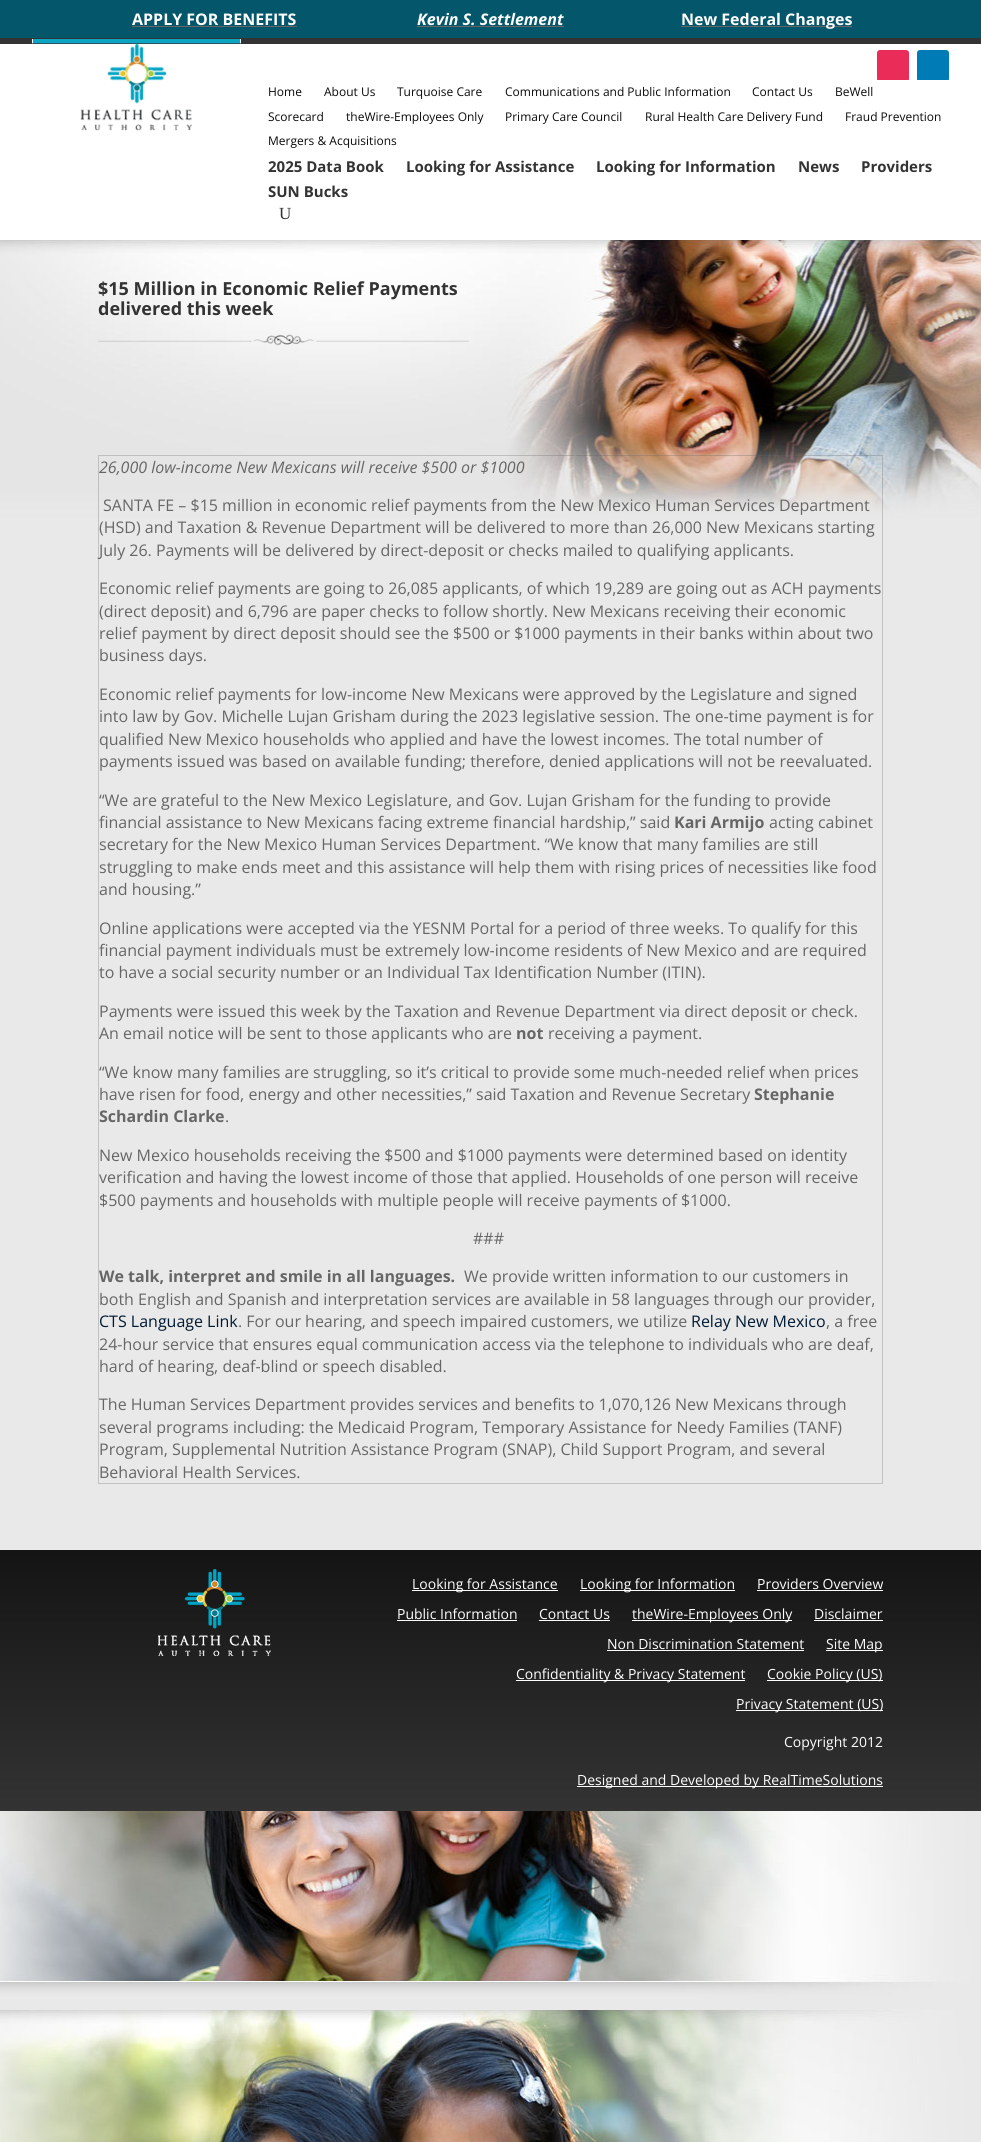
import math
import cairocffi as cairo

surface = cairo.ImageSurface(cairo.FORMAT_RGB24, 981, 2142)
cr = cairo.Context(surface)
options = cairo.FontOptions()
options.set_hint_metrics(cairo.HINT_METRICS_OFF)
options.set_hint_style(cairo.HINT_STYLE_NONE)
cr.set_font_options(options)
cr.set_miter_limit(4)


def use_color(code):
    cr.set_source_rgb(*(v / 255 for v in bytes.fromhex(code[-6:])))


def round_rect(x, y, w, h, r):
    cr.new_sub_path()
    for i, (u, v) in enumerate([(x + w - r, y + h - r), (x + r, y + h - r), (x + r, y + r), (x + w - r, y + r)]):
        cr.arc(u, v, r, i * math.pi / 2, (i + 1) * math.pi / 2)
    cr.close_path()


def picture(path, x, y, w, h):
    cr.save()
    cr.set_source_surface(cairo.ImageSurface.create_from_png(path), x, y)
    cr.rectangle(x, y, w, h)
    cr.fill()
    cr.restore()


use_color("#ffffff")
cr.paint()
picture("img1.png", 0, 1811, 981, 331)
use_color("#04566b")
cr.rectangle(0, 0, 981, 38)
cr.fill()
cr.select_font_face("Open Sans", cairo.FONT_SLANT_NORMAL, cairo.FONT_WEIGHT_BOLD)
cr.set_font_size(16)
use_color("#ffffff")
cr.move_to(132, 25)
cr.show_text("APPLY FOR BENEFITS")
use_color("#666666")
cr.rectangle(132, 26, 165, 1)
cr.fill()
cr.select_font_face("Open Sans", cairo.FONT_SLANT_ITALIC, cairo.FONT_WEIGHT_BOLD)
use_color("#ffffff")
cr.move_to(417, 25)
cr.show_text("Kevin S. Settlement")
use_color("#666666")
cr.rectangle(417, 26, 147, 1)
cr.fill()
cr.rectangle(681, 26, 171, 1)
cr.fill()
cr.select_font_face("Open Sans", cairo.FONT_SLANT_NORMAL, cairo.FONT_WEIGHT_BOLD)
use_color("#ffffff")
cr.move_to(681, 25)
cr.show_text("New Federal Changes")
use_color("#333333")
cr.rectangle(0, 38, 981, 6)
cr.fill()
picture("img2.png", 32, 39, 209, 92)
use_color("#ea2c59")
round_rect(877, 50, 32, 32, 3)
cr.fill()
use_color("#007bb6")
round_rect(917, 50, 32, 32, 3)
cr.fill()
use_color("#ffffff")
cr.rectangle(877, 80, 72, 2)
cr.fill()
cr.select_font_face("Open Sans")
cr.set_font_size(12)
use_color("#0a0a0a")
cr.move_to(268, 96)
cr.show_text("Home")
cr.move_to(324, 96)
cr.show_text("About Us")
cr.move_to(397, 96)
cr.show_text("Turquoise Care")
cr.move_to(505, 96)
cr.show_text("Communications and Public Information")
cr.move_to(752, 96)
cr.show_text("Contact Us")
cr.move_to(835, 96)
cr.show_text("BeWell")
cr.move_to(268, 121)
cr.show_text("Scorecard")
cr.move_to(346, 121)
cr.show_text("theWire-Employees Only")
cr.move_to(505, 121)
cr.show_text("Primary Care Council")
cr.move_to(645, 121)
cr.show_text("Rural Health Care Delivery Fund")
cr.move_to(845, 121)
cr.show_text("Fraud Prevention")
cr.move_to(268, 145)
cr.show_text("Mergers & Acquisitions")
cr.select_font_face("Open Sans", cairo.FONT_SLANT_NORMAL, cairo.FONT_WEIGHT_BOLD)
cr.set_font_size(15)
use_color("#333333")
cr.move_to(268, 172)
cr.show_text("2025 Data Book")
cr.move_to(406, 172)
cr.show_text("Looking for Assistance")
cr.move_to(596, 172)
cr.show_text("Looking for Information")
cr.move_to(798, 172)
cr.show_text("News")
cr.move_to(861, 172)
cr.show_text("Providers")
cr.move_to(268, 197)
cr.show_text("SUN Bucks")
cr.select_font_face("Liberation Serif")
cr.set_font_size(17)
cr.move_to(279, 219)
cr.show_text("U")
picture("img3.png", 0, 240, 981, 301)
cr.select_font_face("Open Sans", cairo.FONT_SLANT_NORMAL, cairo.FONT_WEIGHT_BOLD)
cr.set_font_size(18)
cr.move_to(98, 295)
cr.show_text("$15 Million in Economic Relief Payments")
cr.move_to(98, 315)
cr.show_text("delivered this week")
picture("img4.png", 98, 334, 371, 12)
use_color("#e9e9e9")
cr.rectangle(0, 541, 981, 1009)
cr.fill()
cr.rectangle(98.5, 455.5, 784, 1028)
cr.set_source_rgba(0.4, 0.4, 0.4, 0.3)
cr.set_line_width(1)
cr.stroke()
cr.select_font_face("Open Sans", cairo.FONT_SLANT_ITALIC)
cr.set_font_size(16)
use_color("#666666")
cr.move_to(99, 473)
cr.show_text("26,000 low-income New Mexicans will receive $500 or $1000")
cr.select_font_face("Open Sans")
cr.move_to(103, 511)
cr.show_text("SANTA FE – $15 million in economic relief payments from the New Mexico Human Services Department")
cr.move_to(99, 533)
cr.show_text("(HSD) and Taxation & Revenue Department will be delivered to more than 26,000 New Mexicans starting")
cr.move_to(99, 556)
cr.show_text("July 26. Payments will be delivered by direct-deposit or checks mailed to qualifying applicants.")
cr.move_to(99, 594)
cr.show_text("Economic relief payments are going to 26,085 applicants, of which 19,289 are going out as ACH payments")
cr.move_to(99, 617)
cr.show_text("(direct deposit) and 6,796 are paper checks to follow shortly. New Mexicans receiving their economic")
cr.move_to(99, 639)
cr.show_text("relief payment by direct deposit should see the $500 or $1000 payments in their banks within about two")
cr.move_to(99, 661)
cr.show_text("business days.")
cr.move_to(99, 700)
cr.show_text("Economic relief payments for low-income New Mexicans were approved by the Legislature and signed")
cr.move_to(99, 722)
cr.show_text("into law by Gov. Michelle Lujan Grisham during the 2023 legislative session. The one-time payment is for")
cr.move_to(99, 745)
cr.show_text("qualified New Mexico households who applied and have the lowest incomes. The total number of")
cr.move_to(99, 767)
cr.show_text("payments issued was based on available funding; therefore, denied applications will not be reevaluated.")
cr.move_to(99, 806)
cr.show_text("“We are grateful to the New Mexico Legislature, and Gov. Lujan Grisham for the funding to provide")
cr.move_to(99, 828)
cr.show_text("financial assistance to New Mexicans facing extreme financial hardship,” said")
cr.select_font_face("Open Sans", cairo.FONT_SLANT_NORMAL, cairo.FONT_WEIGHT_BOLD)
cr.move_to(674, 828)
cr.show_text("Kari Armijo")
cr.select_font_face("Open Sans")
cr.move_to(769, 828)
cr.show_text("acting cabinet")
cr.move_to(99, 850)
cr.show_text("secretary for the New Mexico Human Services Department. “We know that many families are still")
cr.move_to(99, 873)
cr.show_text("struggling to make ends meet and this assistance will help them with rising prices of necessities like food")
cr.move_to(99, 895)
cr.show_text("and housing.”")
cr.move_to(99, 934)
cr.show_text("Online applications were accepted via the YESNM Portal for a period of three weeks. To qualify for this")
cr.move_to(99, 956)
cr.show_text("financial payment individuals must be extremely low-income residents of New Mexico and are required")
cr.move_to(99, 978)
cr.show_text("to have a social security number or an Individual Tax Identification Number (ITIN).")
cr.move_to(99, 1017)
cr.show_text("Payments were issued this week by the Taxation and Revenue Department via direct deposit or check.")
cr.move_to(99, 1039)
cr.show_text("An email notice will be sent to those applicants who are")
cr.select_font_face("Open Sans", cairo.FONT_SLANT_NORMAL, cairo.FONT_WEIGHT_BOLD)
cr.move_to(516, 1039)
cr.show_text("not")
cr.select_font_face("Open Sans")
cr.move_to(548, 1039)
cr.show_text("receiving a payment.")
cr.move_to(99, 1078)
cr.show_text("“We know many families are struggling, so it’s critical to provide some much-needed relief when prices")
cr.move_to(99, 1100)
cr.show_text("have risen for food, energy and other necessities,” said Taxation and Revenue Secretary")
cr.select_font_face("Open Sans", cairo.FONT_SLANT_NORMAL, cairo.FONT_WEIGHT_BOLD)
cr.move_to(754, 1100)
cr.show_text("Stephanie")
cr.move_to(99, 1122)
cr.show_text("Schardin Clarke")
cr.select_font_face("Open Sans")
cr.move_to(225, 1122)
cr.show_text(".")
cr.move_to(99, 1161)
cr.show_text("New Mexico households receiving the $500 and $1000 payments were determined based on identity")
cr.move_to(99, 1183)
cr.show_text("verification and having the lowest income of those that applied. Households of one person will receive")
cr.move_to(99, 1206)
cr.show_text("$500 payments and households with multiple people will receive payments of $1000.")
cr.move_to(473, 1244)
cr.show_text("###")
cr.select_font_face("Open Sans", cairo.FONT_SLANT_NORMAL, cairo.FONT_WEIGHT_BOLD)
cr.move_to(99, 1282)
cr.show_text("We talk, interpret and smile in all languages.")
cr.select_font_face("Open Sans")
cr.move_to(464, 1282)
cr.show_text("We provide written information to our customers in")
cr.move_to(99, 1305)
cr.show_text("both English and Spanish and interpretation services are available in 58 languages through our provider,")
use_color("#001a33")
cr.move_to(99, 1327)
cr.show_text("CTS Language Link")
use_color("#666666")
cr.move_to(238, 1327)
cr.show_text(". For our hearing, and speech impaired customers, we utilize")
use_color("#001a33")
cr.move_to(691, 1327)
cr.show_text("Relay New Mexico")
use_color("#666666")
cr.move_to(826, 1327)
cr.show_text(", a free")
cr.move_to(99, 1350)
cr.show_text("24-hour service that ensures equal communication access via the telephone to individuals who are deaf,")
cr.move_to(99, 1372)
cr.show_text("hard of hearing, deaf-blind or speech disabled.")
cr.move_to(99, 1410)
cr.show_text("The Human Services Department provides services and benefits to 1,070,126 New Mexicans through")
cr.move_to(99, 1433)
cr.show_text("several programs including: the Medicaid Program, Temporary Assistance for Needy Families (TANF)")
cr.move_to(99, 1455)
cr.show_text("Program, Supplemental Nutrition Assistance Program (SNAP), Child Support Program, and several")
cr.move_to(99, 1478)
cr.show_text("Behavioral Health Services.")
gradient = cairo.LinearGradient(491, 1550, 491, 1811)
gradient.add_color_stop_rgba(0, 0.078, 0.078, 0.078, 1)
gradient.add_color_stop_rgba(1, 0.2, 0.2, 0.2, 1)
cr.set_source(gradient)
cr.rectangle(0, 1550, 981, 261)
cr.fill()
picture("img5.png", 158, 1569, 113, 87)
use_color("#ffffff")
cr.rectangle(412, 1590, 146, 1)
cr.fill()
cr.set_font_size(14)
cr.move_to(412, 1589)
cr.show_text("Looking for Assistance")
cr.rectangle(580, 1590, 155, 1)
cr.fill()
cr.move_to(580, 1589)
cr.show_text("Looking for Information")
cr.move_to(757, 1589)
cr.show_text("Providers Overview")
cr.rectangle(757, 1590, 126, 1)
cr.fill()
cr.move_to(397, 1619)
cr.show_text("Public Information")
cr.rectangle(397, 1620, 120, 1)
cr.fill()
cr.move_to(539, 1619)
cr.show_text("Contact Us")
cr.rectangle(539, 1620, 71, 1)
cr.fill()
cr.rectangle(632, 1620, 160, 1)
cr.fill()
cr.move_to(632, 1619)
cr.show_text("theWire-Employees Only")
cr.move_to(814, 1619)
cr.show_text("Disclaimer")
cr.rectangle(814, 1620, 69, 1)
cr.fill()
cr.move_to(607, 1649)
cr.show_text("Non Discrimination Statement")
cr.rectangle(607, 1650, 197, 1)
cr.fill()
cr.rectangle(826, 1650, 57, 1)
cr.fill()
cr.move_to(826, 1649)
cr.show_text("Site Map")
cr.rectangle(516, 1680, 229, 1)
cr.fill()
cr.move_to(516, 1679)
cr.show_text("Confidentiality & Privacy Statement")
cr.rectangle(767, 1680, 116, 1)
cr.fill()
cr.move_to(767, 1679)
cr.show_text("Cookie Policy (US)")
cr.rectangle(736, 1710, 147, 1)
cr.fill()
cr.move_to(736, 1709)
cr.show_text("Privacy Statement (US)")
cr.move_to(784, 1747)
cr.show_text("Copyright 2012")
cr.rectangle(577, 1786, 306, 1)
cr.fill()
cr.move_to(577, 1785)
cr.show_text("Designed and Developed by RealTimeSolutions")
surface.write_to_png("result.png")
